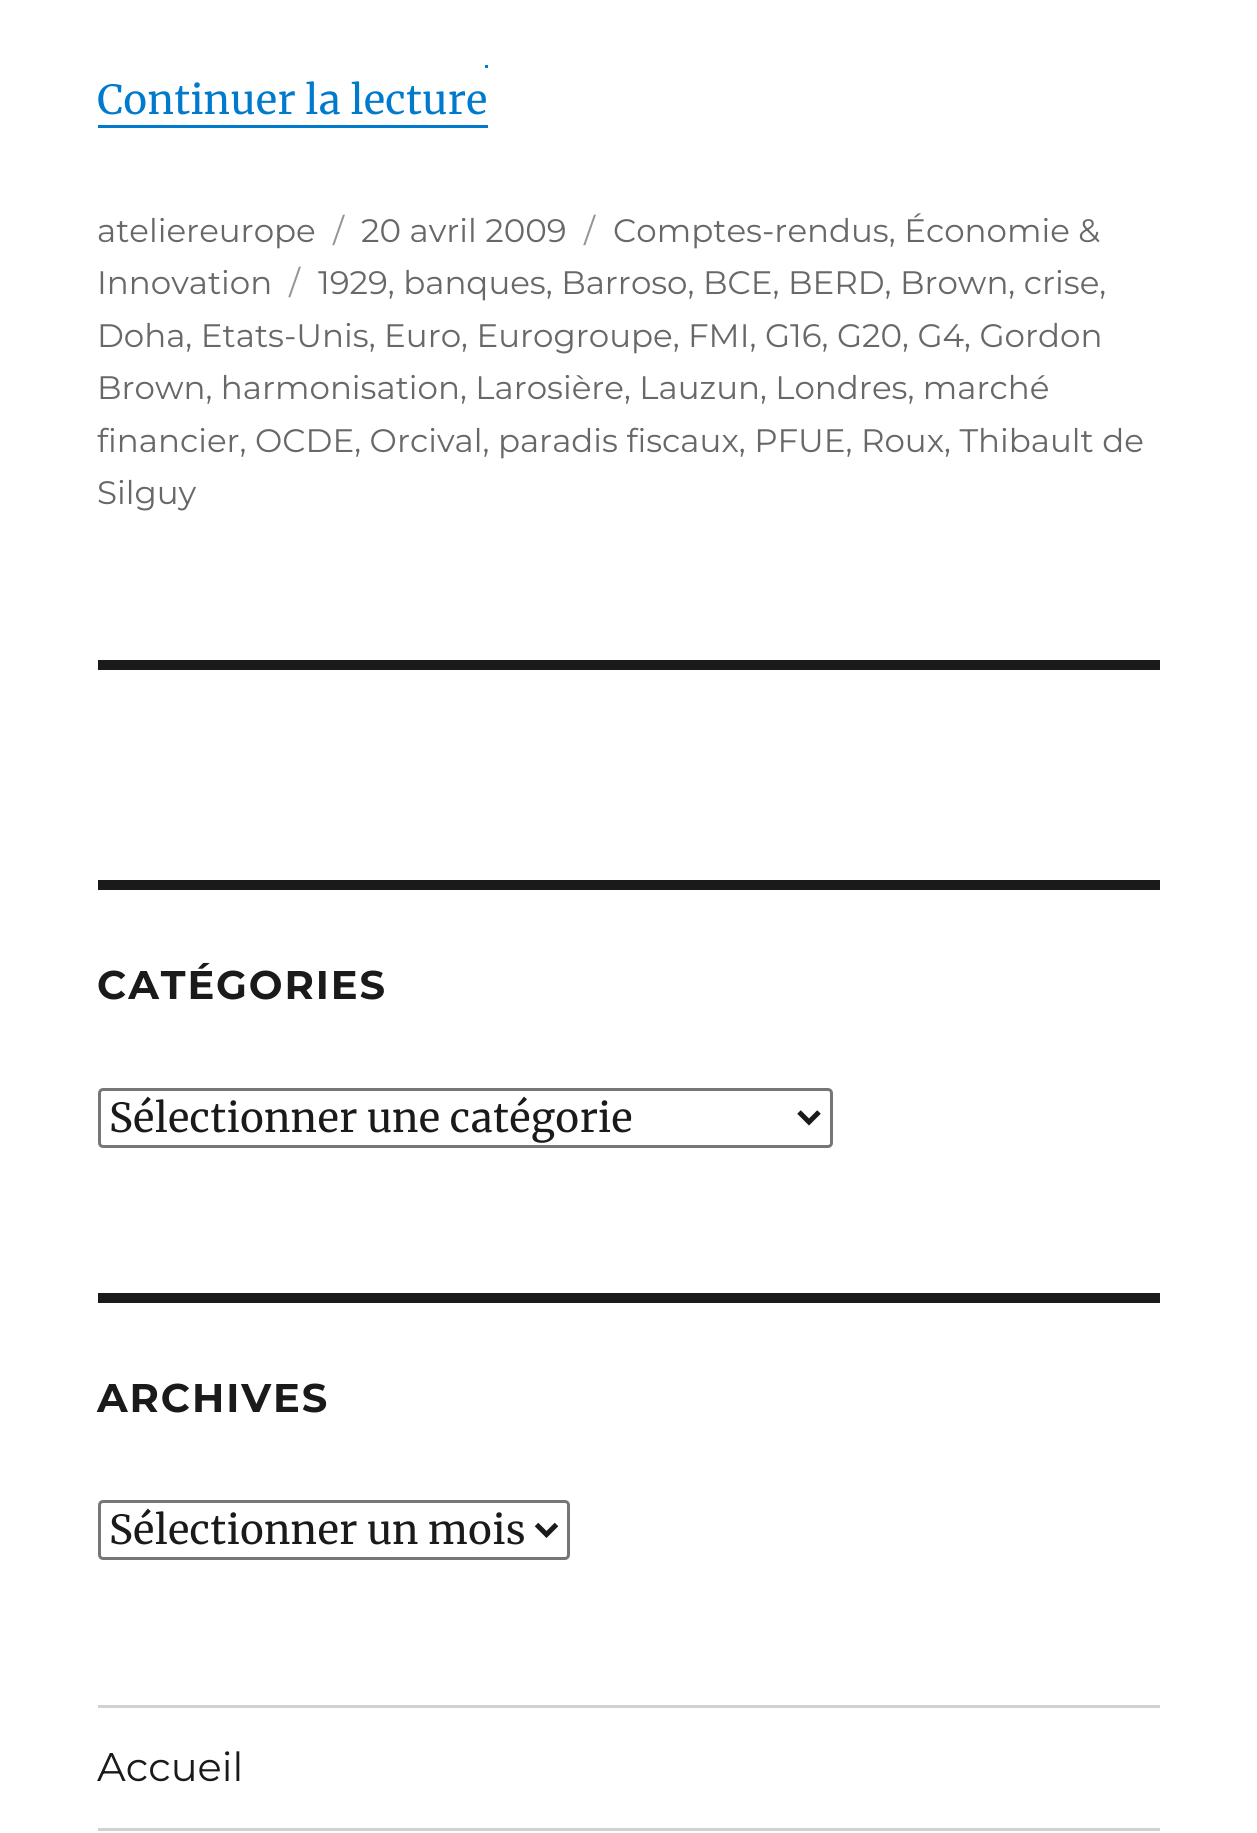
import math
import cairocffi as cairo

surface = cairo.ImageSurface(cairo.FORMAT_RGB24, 1257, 1833)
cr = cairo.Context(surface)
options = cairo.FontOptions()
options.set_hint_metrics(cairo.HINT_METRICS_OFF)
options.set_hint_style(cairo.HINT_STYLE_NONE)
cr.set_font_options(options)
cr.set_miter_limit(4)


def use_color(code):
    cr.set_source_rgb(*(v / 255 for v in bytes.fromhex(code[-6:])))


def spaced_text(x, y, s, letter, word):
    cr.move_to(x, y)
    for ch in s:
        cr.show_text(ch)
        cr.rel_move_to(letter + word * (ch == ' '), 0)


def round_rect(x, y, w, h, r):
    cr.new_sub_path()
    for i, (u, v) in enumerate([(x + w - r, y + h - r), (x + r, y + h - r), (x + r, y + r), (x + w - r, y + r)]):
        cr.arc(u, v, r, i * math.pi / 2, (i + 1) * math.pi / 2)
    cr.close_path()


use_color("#ffffff")
cr.paint()
cr.select_font_face("Merriweather")
cr.set_font_size(40)
use_color("#007acc")
cr.move_to(97, 114)
cr.show_text("Continuer la lecture")
cr.new_path()
cr.move_to(98, 125)
cr.line_to(98, 128)
cr.line_to(488, 128)
cr.line_to(488, 78)
cr.line_to(488, 125)
cr.close_path()
cr.fill()
cr.rectangle(485, 65, 3, 3)
cr.fill()
cr.select_font_face("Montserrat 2 Thin")
cr.set_font_size(32.5)
use_color("#686868")
cr.move_to(613, 242)
cr.show_text("Comptes-rendus, Économie &")
cr.move_to(97, 294)
cr.show_text("Innovation")
use_color("#959595")
cr.move_to(289, 294)
cr.show_text("/")
use_color("#686868")
cr.move_to(97, 242)
cr.show_text("ateliereurope")
use_color("#959595")
cr.move_to(333, 242)
cr.show_text("/")
use_color("#686868")
cr.move_to(361, 242)
cr.show_text("20 avril 2009")
use_color("#959595")
cr.move_to(584, 242)
cr.show_text("/")
use_color("#686868")
cr.move_to(318, 294)
cr.show_text("1929, banques, Barroso, BCE, BERD, Brown, crise,")
cr.move_to(97, 347)
cr.show_text("Doha, Etats-Unis, Euro, Eurogroupe, FMI, G16, G20, G4, Gordon")
cr.move_to(97, 399)
cr.show_text("Brown, harmonisation, Larosière, Lauzun, Londres, marché")
cr.move_to(97, 452)
cr.show_text("financier, OCDE, Orcival, paradis fiscaux, PFUE, Roux, Thibault de")
cr.move_to(97, 504)
cr.show_text("Silguy")
use_color("#1a1a1a")
cr.rectangle(98, 660, 1062, 10)
cr.fill()
cr.rectangle(98, 880, 1062, 10)
cr.fill()
cr.select_font_face("Montserrat Thin")
cr.set_font_size(40)
spaced_text(97, 999, "CATÉGORIES", 1.9, 0)
round_rect(99.5, 1089.5, 732, 57, 3.5)
use_color("#767676")
cr.set_line_width(3)
cr.stroke()
cr.new_path()
cr.move_to(799, 1112)
cr.line_to(809, 1122)
cr.line_to(819, 1112)
use_color("#1a1a1a")
cr.set_line_width(5)
cr.stroke()
cr.select_font_face("Merriweather")
cr.move_to(109, 1132)
cr.show_text("Sélectionner une catégorie")
cr.rectangle(98, 1293, 1062, 10)
cr.fill()
cr.select_font_face("Montserrat Thin")
spaced_text(97, 1412, "ARCHIVES", 1.9, 0)
round_rect(99.5, 1501.5, 469, 57, 3.5)
use_color("#767676")
cr.set_line_width(3)
cr.stroke()
cr.new_path()
cr.move_to(536.5, 1524.5)
cr.line_to(546.5, 1534.5)
cr.line_to(556.5, 1524.5)
use_color("#1a1a1a")
cr.set_line_width(5)
cr.stroke()
cr.select_font_face("Merriweather")
cr.move_to(109, 1544)
cr.show_text("Sélectionner un mois")
use_color("#d1d1d1")
cr.rectangle(98, 1705, 1062, 3)
cr.fill()
cr.select_font_face("Montserrat 2 Thin")
use_color("#1a1a1a")
cr.move_to(97, 1781)
cr.show_text("Accueil")
use_color("#d1d1d1")
cr.rectangle(98, 1828, 1062, 3)
cr.fill()
surface.write_to_png("result.png")
